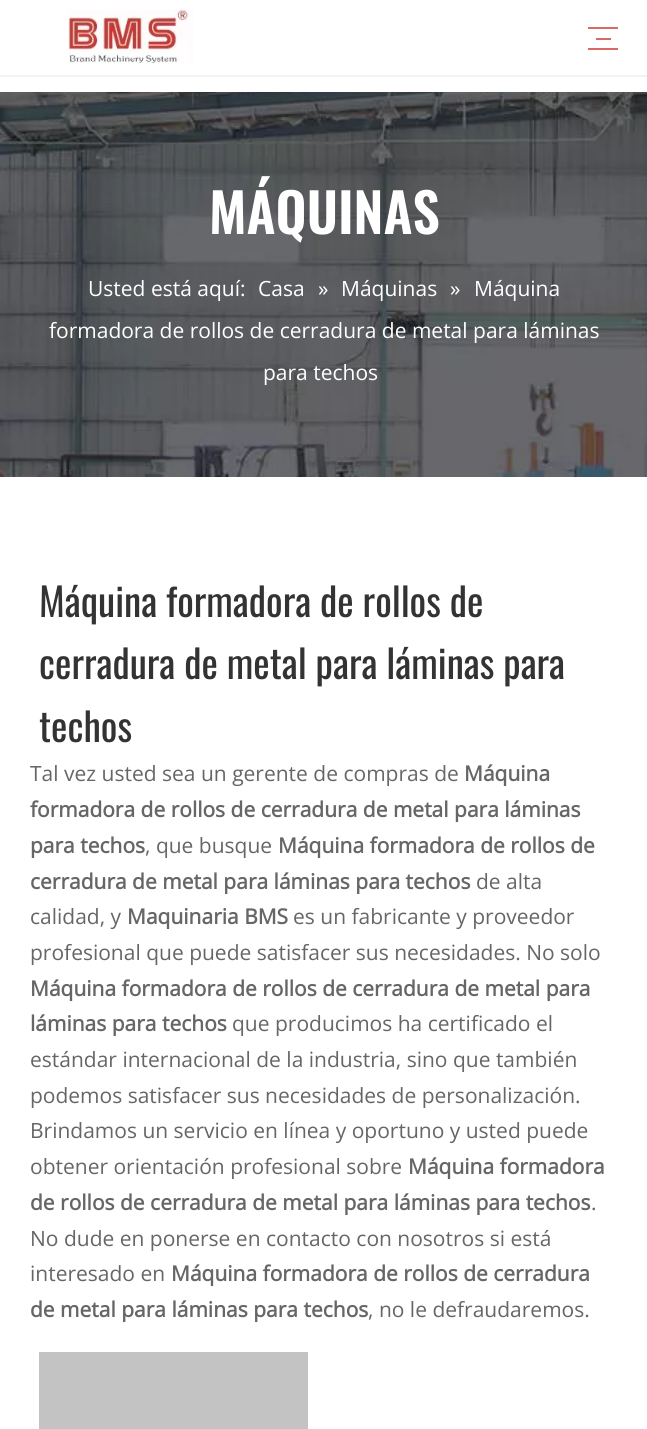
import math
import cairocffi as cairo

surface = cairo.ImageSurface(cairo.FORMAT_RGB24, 647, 1429)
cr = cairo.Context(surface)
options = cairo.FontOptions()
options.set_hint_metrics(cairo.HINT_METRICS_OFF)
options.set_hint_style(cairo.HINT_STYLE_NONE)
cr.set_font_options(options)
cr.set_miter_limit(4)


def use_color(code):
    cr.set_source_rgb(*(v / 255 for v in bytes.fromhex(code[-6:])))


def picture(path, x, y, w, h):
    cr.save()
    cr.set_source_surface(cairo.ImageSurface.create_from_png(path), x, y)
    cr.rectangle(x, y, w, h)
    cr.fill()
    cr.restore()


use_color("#ffffff")
cr.paint()
use_color("#f3f3f3")
cr.rectangle(0, 75, 647, 2)
cr.fill()
picture("img1.png", 68, 9, 126, 54)
use_color("#d86964")
cr.rectangle(588, 27, 30, 2)
cr.fill()
cr.rectangle(596, 38, 15, 2)
cr.fill()
cr.rectangle(588, 48, 30, 2)
cr.fill()
picture("img2.png", 0, 92, 647, 385)
cr.select_font_face("Oswald SemiBold")
cr.set_font_size(54)
use_color("#ffffff")
cr.move_to(209, 234)
cr.show_text("MÁQUINAS")
cr.select_font_face("Open Sans")
cr.set_font_size(21)
cr.move_to(88, 296)
cr.show_text("Usted está aquí:")
cr.move_to(258, 296)
cr.show_text("Casa")
cr.move_to(318, 296)
cr.show_text("»")
cr.move_to(341, 296)
cr.show_text("Máquinas")
cr.move_to(450, 296)
cr.show_text("»")
cr.move_to(474, 296)
cr.show_text("Máquina")
cr.move_to(49, 338)
cr.show_text("formadora de rollos de cerradura de metal para láminas")
cr.move_to(263, 380)
cr.show_text("para techos")
cr.select_font_face("Oswald")
cr.set_font_size(39)
use_color("#333333")
cr.move_to(39, 617)
cr.show_text("Máquina formadora de rollos de")
cr.move_to(39, 679)
cr.show_text("cerradura de metal para láminas para")
cr.move_to(39, 742)
cr.show_text("techos")
cr.select_font_face("Open Sans")
cr.set_font_size(21)
use_color("#666666")
cr.move_to(30, 781)
cr.show_text("Tal vez usted sea un gerente de compras de")
cr.select_font_face("Open Sans", cairo.FONT_SLANT_NORMAL, cairo.FONT_WEIGHT_BOLD)
cr.move_to(464, 781)
cr.show_text("Máquina")
cr.move_to(30, 817)
cr.show_text("formadora de rollos de cerradura de metal para láminas")
cr.move_to(30, 853)
cr.show_text("para techos")
cr.select_font_face("Open Sans")
cr.move_to(145, 853)
cr.show_text(", que busque")
cr.select_font_face("Open Sans", cairo.FONT_SLANT_NORMAL, cairo.FONT_WEIGHT_BOLD)
cr.move_to(278, 853)
cr.show_text("Máquina formadora de rollos de")
cr.move_to(30, 889)
cr.show_text("cerradura de metal para láminas para techos")
cr.select_font_face("Open Sans")
cr.move_to(476, 889)
cr.show_text("de alta")
cr.move_to(30, 924)
cr.show_text("calidad, y")
cr.select_font_face("Open Sans", cairo.FONT_SLANT_NORMAL, cairo.FONT_WEIGHT_BOLD)
cr.move_to(127, 924)
cr.show_text("Maquinaria BMS")
cr.select_font_face("Open Sans")
cr.move_to(293, 924)
cr.show_text("es un fabricante y proveedor")
cr.move_to(30, 960)
cr.show_text("profesional que puede satisfacer sus necesidades. No solo")
cr.select_font_face("Open Sans", cairo.FONT_SLANT_NORMAL, cairo.FONT_WEIGHT_BOLD)
cr.move_to(30, 996)
cr.show_text("Máquina formadora de rollos de cerradura de metal para")
cr.move_to(30, 1031)
cr.show_text("láminas para techos")
cr.select_font_face("Open Sans")
cr.move_to(232, 1031)
cr.show_text("que producimos ha certificado el")
cr.move_to(30, 1067)
cr.show_text("estándar internacional de la industria, sino que también")
cr.move_to(30, 1103)
cr.show_text("podemos satisfacer sus necesidades de personalización.")
cr.move_to(30, 1138)
cr.show_text("Brindamos un servicio en línea y oportuno y usted puede")
cr.move_to(30, 1174)
cr.show_text("obtener orientación profesional sobre")
cr.select_font_face("Open Sans", cairo.FONT_SLANT_NORMAL, cairo.FONT_WEIGHT_BOLD)
cr.move_to(408, 1174)
cr.show_text("Máquina formadora")
cr.move_to(30, 1210)
cr.show_text("de rollos de cerradura de metal para láminas para techos")
cr.select_font_face("Open Sans")
cr.move_to(591, 1210)
cr.show_text(".")
cr.move_to(30, 1246)
cr.show_text("No dude en ponerse en contacto con nosotros si está")
cr.move_to(30, 1281)
cr.show_text("interesado en")
cr.select_font_face("Open Sans", cairo.FONT_SLANT_NORMAL, cairo.FONT_WEIGHT_BOLD)
cr.move_to(171, 1281)
cr.show_text("Máquina formadora de rollos de cerradura")
cr.move_to(30, 1317)
cr.show_text("de metal para láminas para techos")
cr.select_font_face("Open Sans")
cr.move_to(368, 1317)
cr.show_text(", no le defraudaremos.")
use_color("#c3c3c3")
cr.rectangle(39, 1352, 269, 77)
cr.fill()
surface.write_to_png("result.png")
